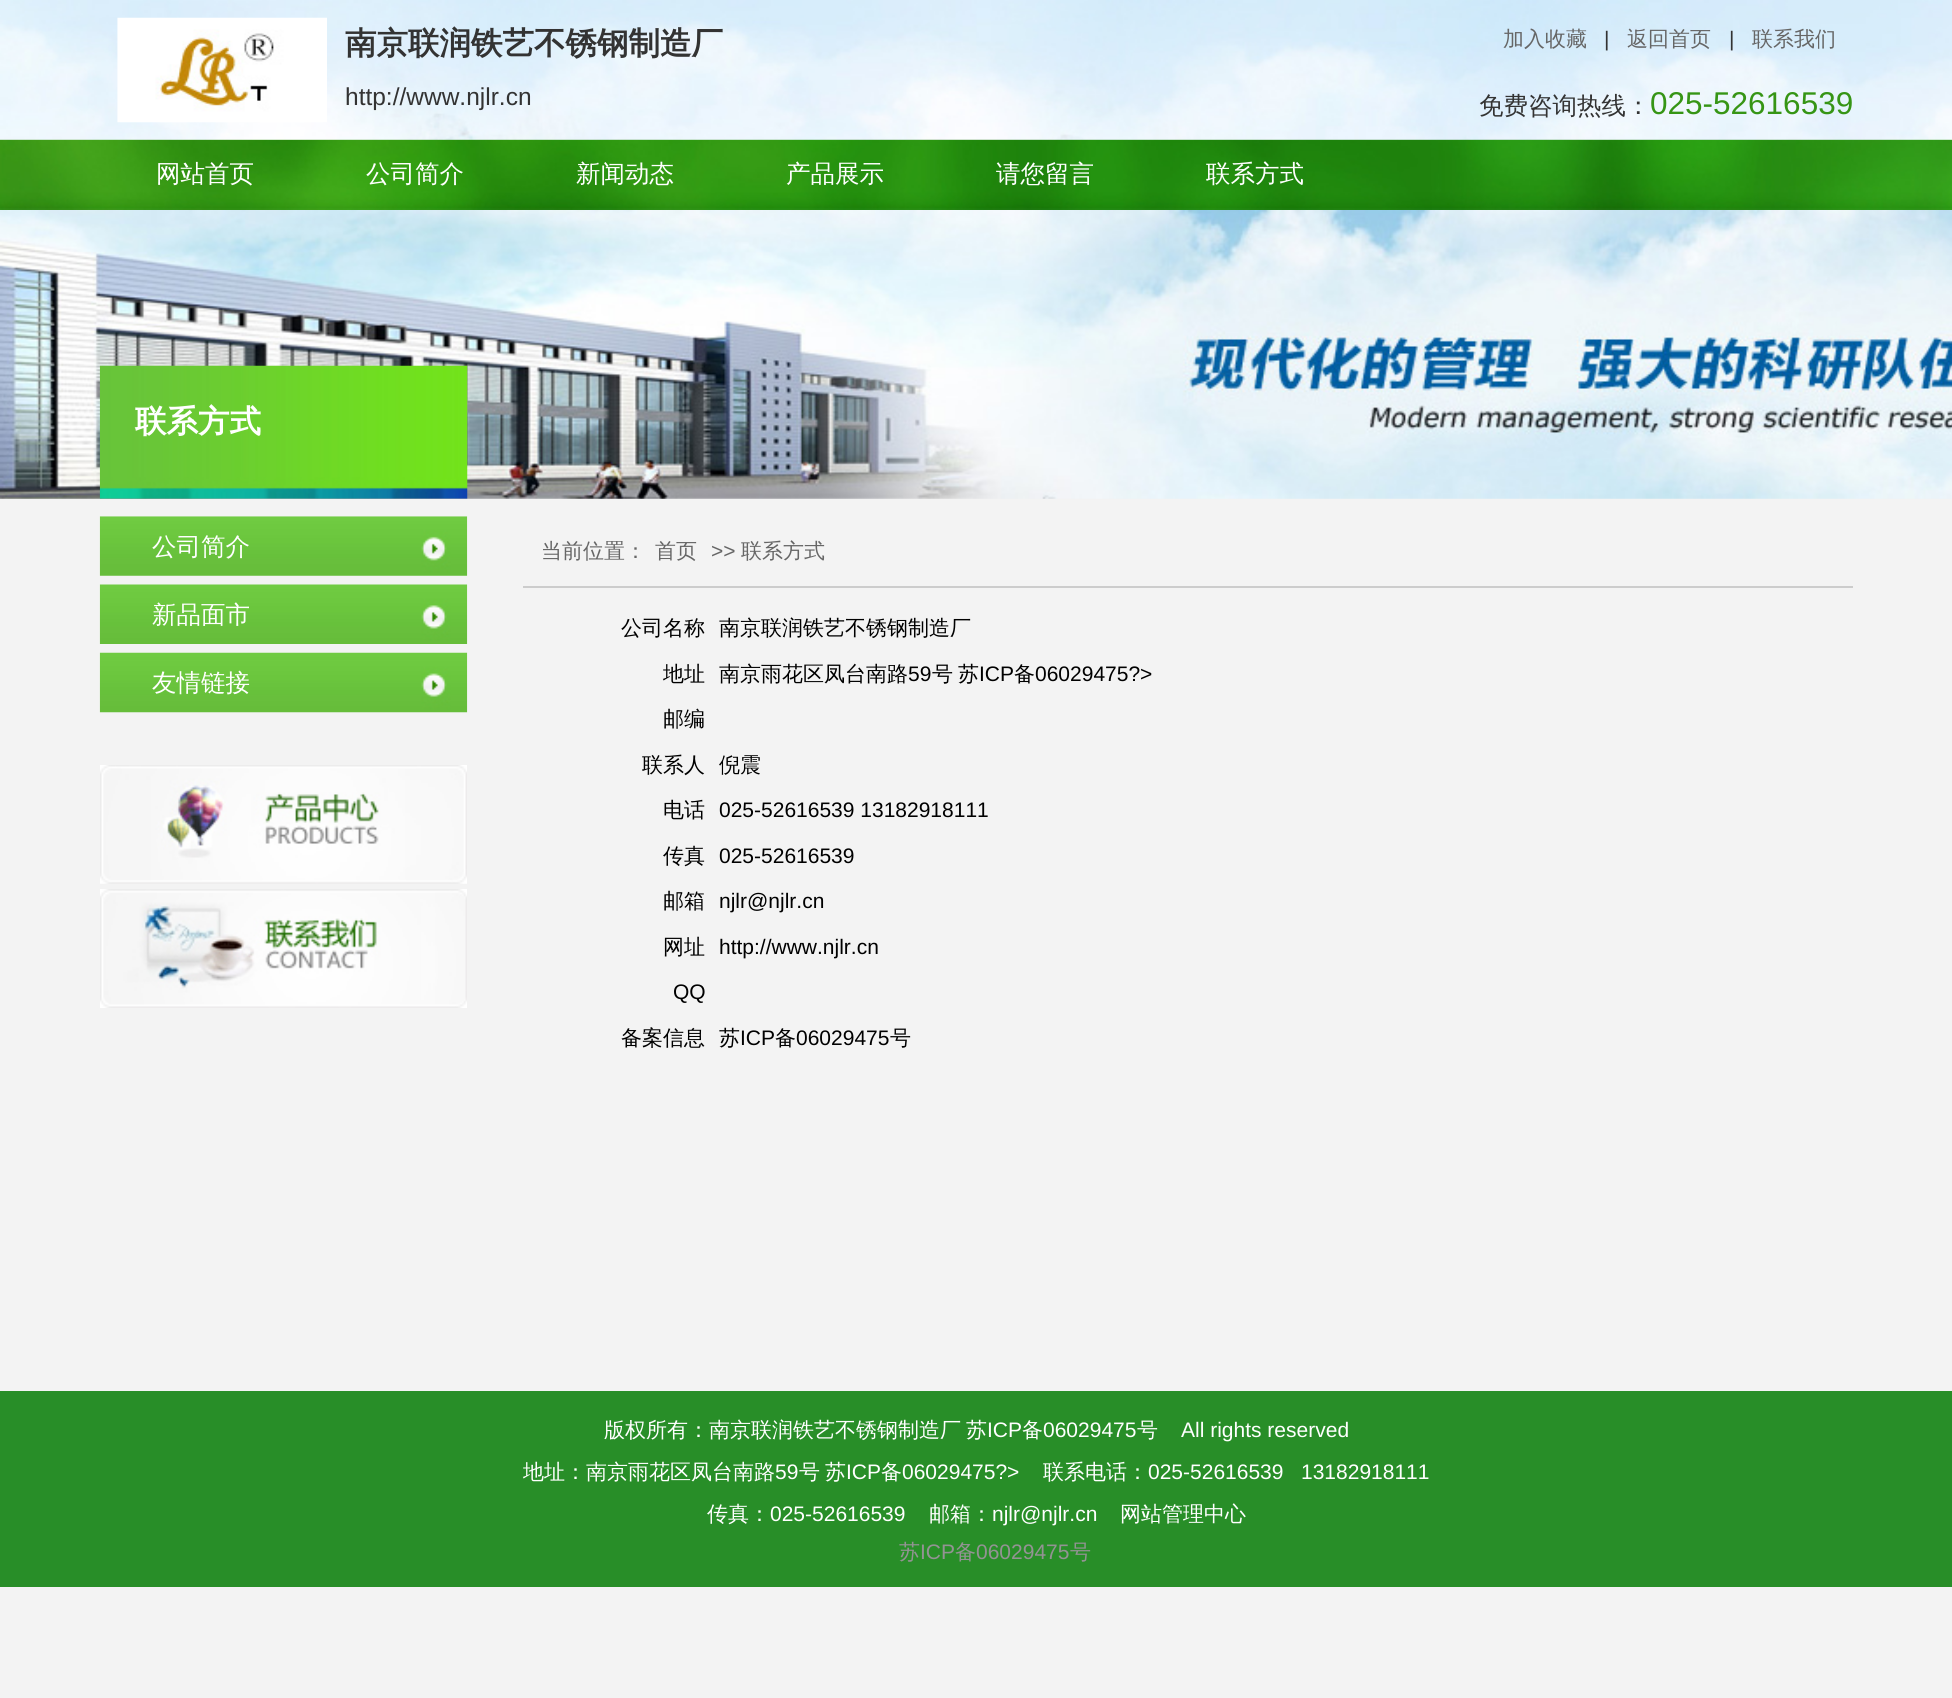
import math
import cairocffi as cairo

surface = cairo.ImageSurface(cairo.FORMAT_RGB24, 1952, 1698)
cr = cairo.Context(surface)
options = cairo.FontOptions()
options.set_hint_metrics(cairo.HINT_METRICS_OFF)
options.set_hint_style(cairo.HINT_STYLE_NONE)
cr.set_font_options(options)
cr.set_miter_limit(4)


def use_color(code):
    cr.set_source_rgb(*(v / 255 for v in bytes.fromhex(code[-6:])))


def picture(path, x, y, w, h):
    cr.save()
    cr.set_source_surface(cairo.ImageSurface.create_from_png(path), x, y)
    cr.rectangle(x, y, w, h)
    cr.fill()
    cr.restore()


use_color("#f3f3f3")
cr.paint()
picture("img1.png", 0, 0, 1952, 140)
picture("img2.png", 117, 17, 210, 106)
cr.select_font_face("WenQuanYi Zen Hei", cairo.FONT_SLANT_NORMAL, cairo.FONT_WEIGHT_BOLD)
cr.set_font_size(31.5)
use_color("#333333")
cr.move_to(345, 54)
cr.show_text("南京联润铁艺不锈钢制造厂")
cr.select_font_face("Liberation Sans")
cr.set_font_size(24.5)
cr.move_to(345, 105)
cr.show_text("http://www.njlr.cn")
cr.select_font_face("WenQuanYi Zen Hei Medium")
cr.set_font_size(21)
use_color("#666666")
cr.move_to(1503, 46)
cr.show_text("加入收藏")
cr.select_font_face("Liberation Sans")
use_color("#333333")
cr.move_to(1604, 46)
cr.show_text("|")
cr.select_font_face("WenQuanYi Zen Hei Medium")
use_color("#666666")
cr.move_to(1627, 46)
cr.show_text("返回首页")
cr.select_font_face("Liberation Sans")
use_color("#333333")
cr.move_to(1729, 46)
cr.show_text("|")
cr.select_font_face("WenQuanYi Zen Hei Medium")
use_color("#666666")
cr.move_to(1752, 46)
cr.show_text("联系我们")
cr.set_font_size(24.5)
use_color("#333333")
cr.move_to(1479, 114)
cr.show_text("免费咨询热线：")
cr.select_font_face("Liberation Sans")
cr.set_font_size(31.5)
use_color("#369515")
cr.move_to(1650, 114)
cr.show_text("025-52616539")
picture("img3.png", 0, 140, 1952, 70)
cr.select_font_face("WenQuanYi Zen Hei Medium")
cr.set_font_size(24.5)
use_color("#ffffff")
cr.move_to(156, 182)
cr.show_text("网站首页")
cr.move_to(366, 182)
cr.show_text("公司简介")
cr.move_to(576, 182)
cr.show_text("新闻动态")
cr.move_to(786, 182)
cr.show_text("产品展示")
cr.move_to(996, 182)
cr.show_text("请您留言")
cr.move_to(1206, 182)
cr.show_text("联系方式")
picture("img4.png", 0, 210, 1952, 289)
picture("img5.png", 99, 365, 369, 134)
cr.select_font_face("WenQuanYi Zen Hei", cairo.FONT_SLANT_NORMAL, cairo.FONT_WEIGHT_BOLD)
cr.set_font_size(31.5)
cr.move_to(135, 432)
cr.show_text("联系方式")
picture("img6.png", 99, 516, 369, 60)
cr.select_font_face("WenQuanYi Zen Hei Medium")
cr.set_font_size(24.5)
cr.move_to(152, 555)
cr.show_text("公司简介")
picture("img7.png", 99, 584, 369, 60)
cr.move_to(152, 623)
cr.show_text("新品面市")
picture("img8.png", 99, 652, 369, 61)
cr.move_to(152, 691)
cr.show_text("友情链接")
picture("img9.png", 100, 765, 367, 119)
picture("img10.png", 100, 889, 367, 119)
use_color("#cccccc")
cr.rectangle(523, 586, 1330, 2)
cr.fill()
cr.set_font_size(21)
use_color("#666666")
cr.move_to(541, 558)
cr.show_text("当前位置：")
cr.move_to(655, 558)
cr.show_text("首页")
cr.select_font_face("Liberation Sans")
cr.move_to(711, 558)
cr.show_text(">>")
cr.select_font_face("WenQuanYi Zen Hei Medium")
cr.move_to(741, 558)
cr.show_text("联系方式")
use_color("#000000")
cr.move_to(621, 635)
cr.show_text("公司名称")
cr.move_to(719, 635)
cr.show_text("南京联润铁艺不锈钢制造厂")
cr.move_to(663, 681)
cr.show_text("地址")
cr.move_to(719, 681)
cr.show_text("南京雨花区凤台南路")
cr.select_font_face("Liberation Sans")
cr.move_to(908, 681)
cr.show_text("59")
cr.select_font_face("WenQuanYi Zen Hei Medium")
cr.move_to(932, 681)
cr.show_text("号")
cr.move_to(958, 681)
cr.show_text("苏")
cr.select_font_face("Liberation Sans")
cr.move_to(979, 681)
cr.show_text("ICP")
cr.select_font_face("WenQuanYi Zen Hei Medium")
cr.move_to(1014, 681)
cr.show_text("备")
cr.select_font_face("Liberation Sans")
cr.move_to(1035, 681)
cr.show_text("06029475?>")
cr.select_font_face("WenQuanYi Zen Hei Medium")
cr.move_to(663, 726)
cr.show_text("邮编")
cr.move_to(642, 772)
cr.show_text("联系人")
cr.move_to(719, 772)
cr.show_text("倪震")
cr.move_to(663, 817)
cr.show_text("电话")
cr.select_font_face("Liberation Sans")
cr.move_to(719, 817)
cr.show_text("025-52616539 13182918111")
cr.select_font_face("WenQuanYi Zen Hei Medium")
cr.move_to(663, 863)
cr.show_text("传真")
cr.select_font_face("Liberation Sans")
cr.move_to(719, 863)
cr.show_text("025-52616539")
cr.select_font_face("WenQuanYi Zen Hei Medium")
cr.move_to(663, 908)
cr.show_text("邮箱")
cr.select_font_face("Liberation Sans")
cr.move_to(719, 908)
cr.show_text("njlr@njlr.cn")
cr.select_font_face("WenQuanYi Zen Hei Medium")
cr.move_to(663, 954)
cr.show_text("网址")
cr.select_font_face("Liberation Sans")
cr.move_to(719, 954)
cr.show_text("http://www.njlr.cn")
cr.move_to(673, 999)
cr.show_text("QQ")
cr.select_font_face("WenQuanYi Zen Hei Medium")
cr.move_to(621, 1045)
cr.show_text("备案信息")
cr.move_to(719, 1045)
cr.show_text("苏")
cr.select_font_face("Liberation Sans")
cr.move_to(740, 1045)
cr.show_text("ICP")
cr.select_font_face("WenQuanYi Zen Hei Medium")
cr.move_to(775, 1045)
cr.show_text("备")
cr.select_font_face("Liberation Sans")
cr.move_to(796, 1045)
cr.show_text("06029475")
cr.select_font_face("WenQuanYi Zen Hei Medium")
cr.move_to(890, 1045)
cr.show_text("号")
use_color("#288e28")
cr.rectangle(0, 1391, 1952, 196)
cr.fill()
use_color("#ffffff")
cr.move_to(604, 1437)
cr.show_text("版权所有：南京联润铁艺不锈钢制造厂")
cr.move_to(966, 1437)
cr.show_text("苏")
cr.select_font_face("Liberation Sans")
cr.move_to(987, 1437)
cr.show_text("ICP")
cr.select_font_face("WenQuanYi Zen Hei Medium")
cr.move_to(1022, 1437)
cr.show_text("备")
cr.select_font_face("Liberation Sans")
cr.move_to(1043, 1437)
cr.show_text("06029475")
cr.select_font_face("WenQuanYi Zen Hei Medium")
cr.move_to(1137, 1437)
cr.show_text("号")
cr.select_font_face("Liberation Sans")
cr.move_to(1181, 1437)
cr.show_text("All rights reserved")
cr.select_font_face("WenQuanYi Zen Hei Medium")
cr.move_to(523, 1479)
cr.show_text("地址：南京雨花区凤台南路")
cr.select_font_face("Liberation Sans")
cr.move_to(775, 1479)
cr.show_text("59")
cr.select_font_face("WenQuanYi Zen Hei Medium")
cr.move_to(799, 1479)
cr.show_text("号")
cr.move_to(825, 1479)
cr.show_text("苏")
cr.select_font_face("Liberation Sans")
cr.move_to(846, 1479)
cr.show_text("ICP")
cr.select_font_face("WenQuanYi Zen Hei Medium")
cr.move_to(881, 1479)
cr.show_text("备")
cr.select_font_face("Liberation Sans")
cr.move_to(902, 1479)
cr.show_text("06029475?>")
cr.select_font_face("WenQuanYi Zen Hei Medium")
cr.move_to(1043, 1479)
cr.show_text("联系电话：")
cr.select_font_face("Liberation Sans")
cr.move_to(1148, 1479)
cr.show_text("025-52616539")
cr.move_to(1301, 1479)
cr.show_text("13182918111")
cr.select_font_face("WenQuanYi Zen Hei Medium")
cr.move_to(707, 1521)
cr.show_text("传真：")
cr.select_font_face("Liberation Sans")
cr.move_to(770, 1521)
cr.show_text("025-52616539")
cr.select_font_face("WenQuanYi Zen Hei Medium")
cr.move_to(929, 1521)
cr.show_text("邮箱：")
cr.select_font_face("Liberation Sans")
cr.move_to(992, 1521)
cr.show_text("njlr@njlr.cn")
cr.select_font_face("WenQuanYi Zen Hei Medium")
cr.move_to(1120, 1521)
cr.show_text("网站管理中心")
use_color("#939393")
cr.move_to(899, 1559)
cr.show_text("苏")
cr.select_font_face("Liberation Sans")
cr.move_to(920, 1559)
cr.show_text("ICP")
cr.select_font_face("WenQuanYi Zen Hei Medium")
cr.move_to(955, 1559)
cr.show_text("备")
cr.select_font_face("Liberation Sans")
cr.move_to(976, 1559)
cr.show_text("06029475")
cr.select_font_face("WenQuanYi Zen Hei Medium")
cr.move_to(1070, 1559)
cr.show_text("号")
surface.write_to_png("result.png")
